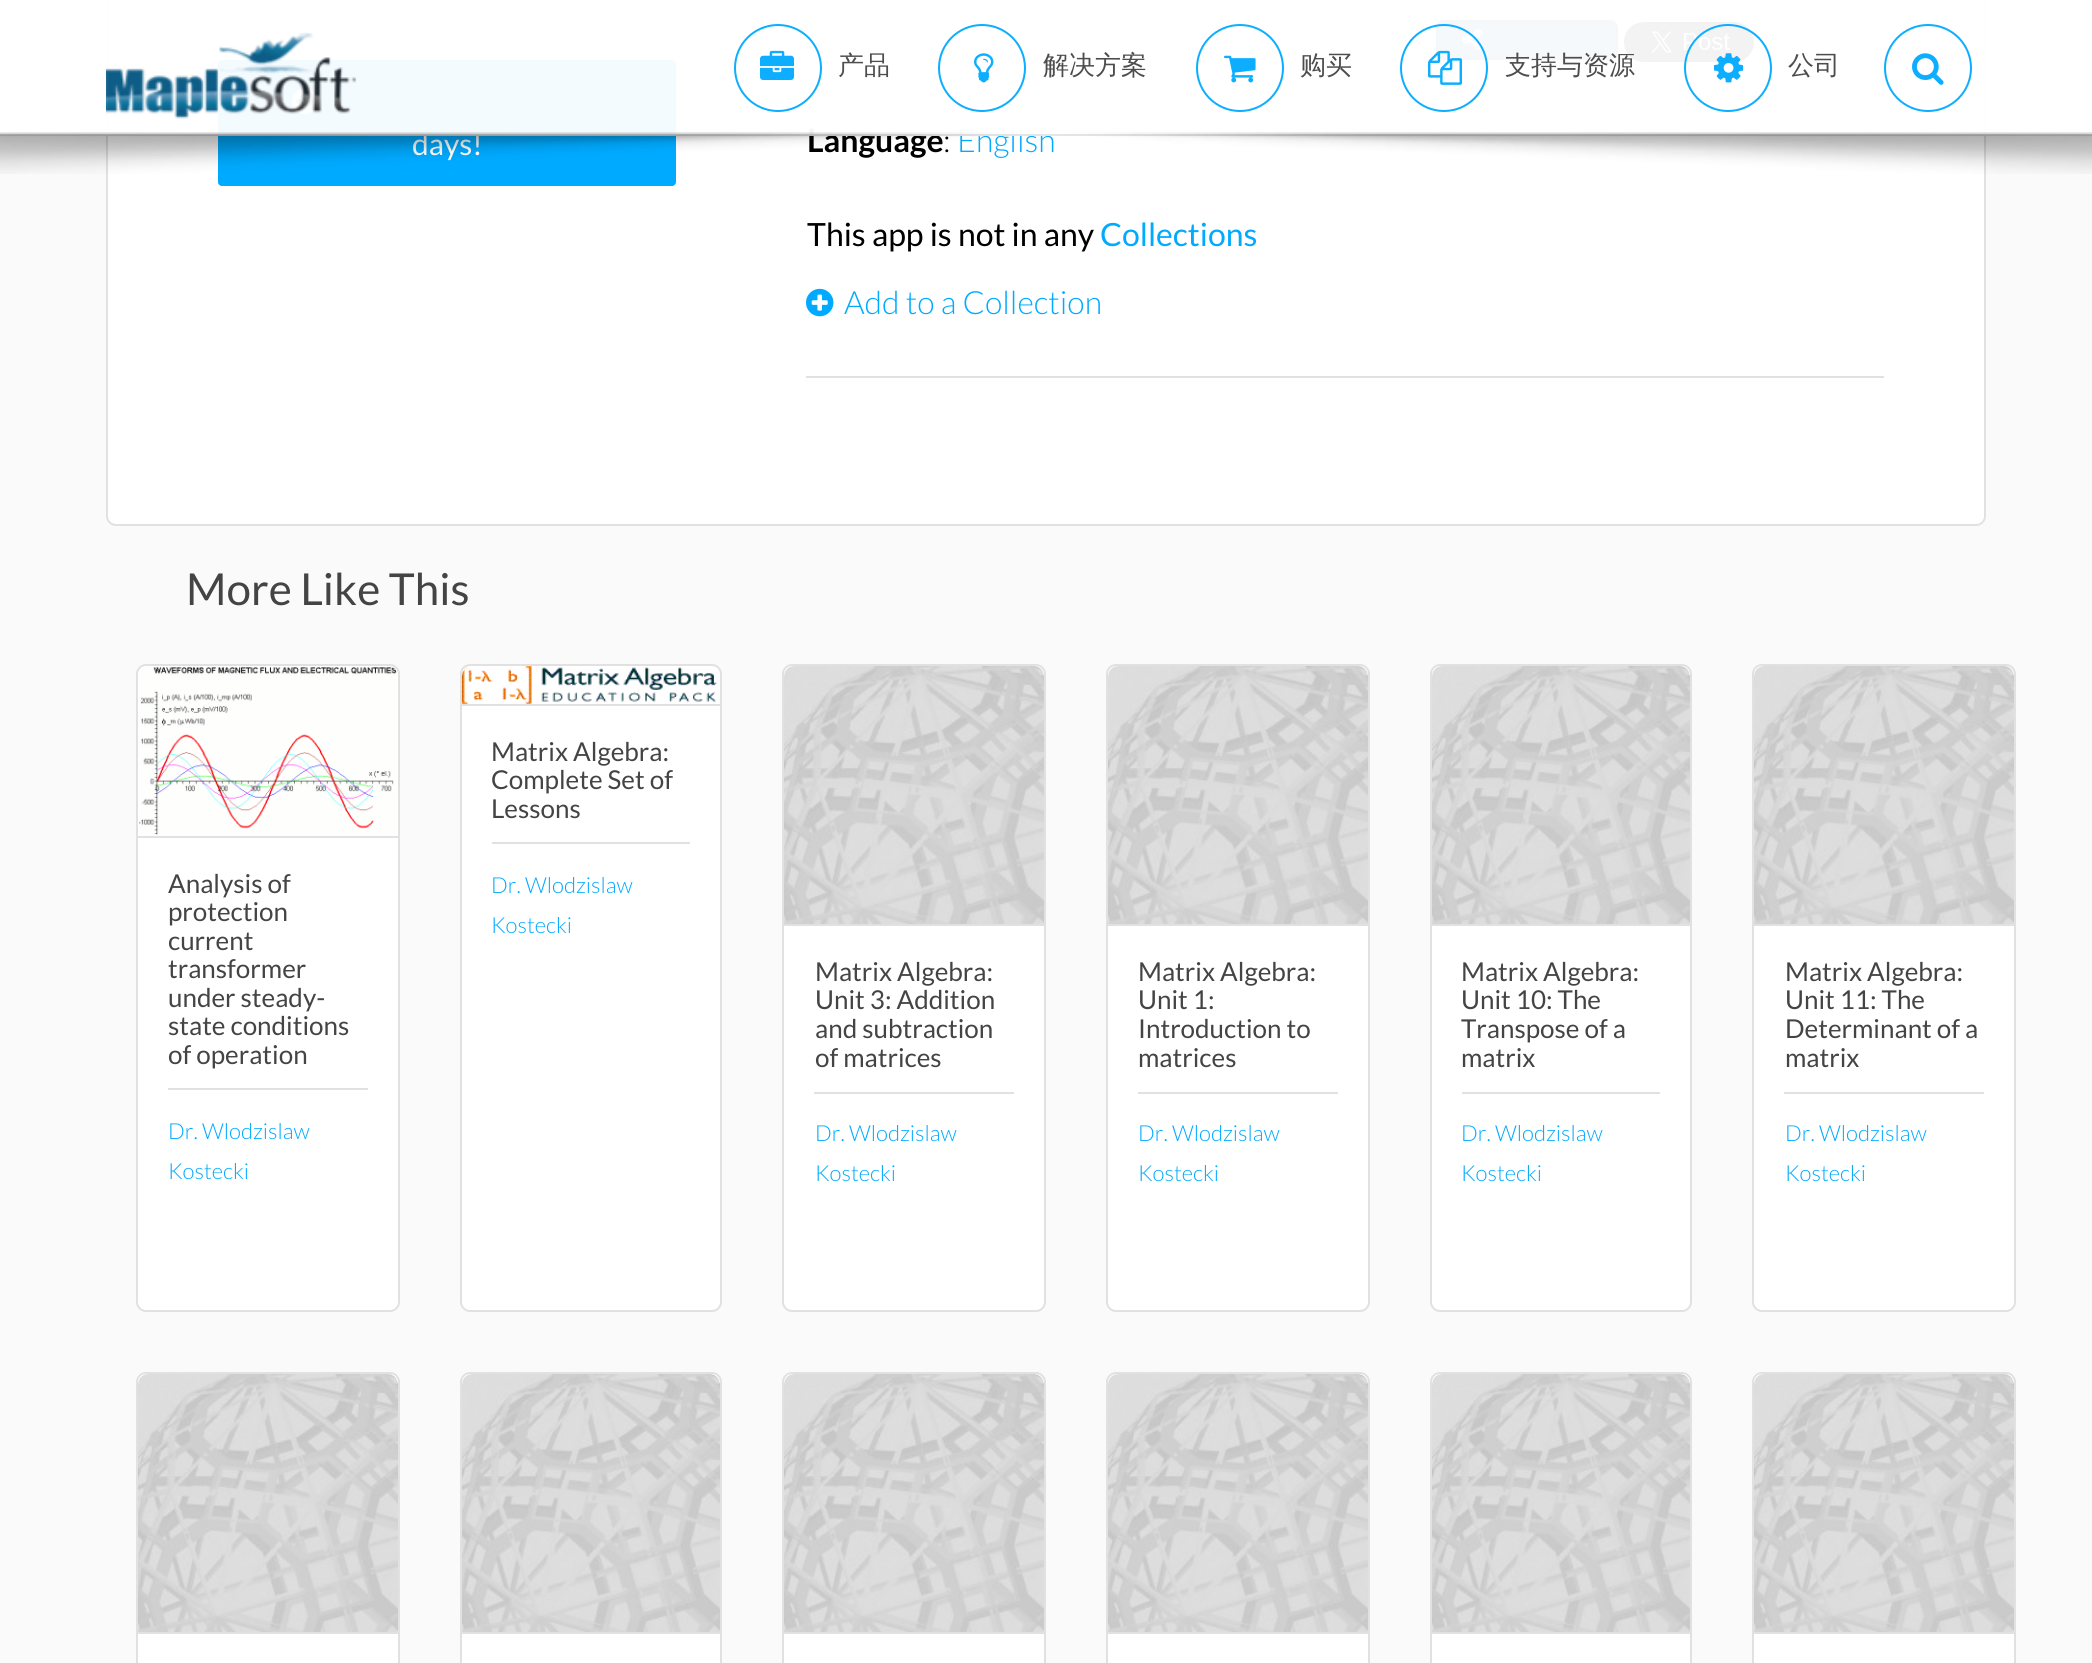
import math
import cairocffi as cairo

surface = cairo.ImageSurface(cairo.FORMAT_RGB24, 2092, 1663)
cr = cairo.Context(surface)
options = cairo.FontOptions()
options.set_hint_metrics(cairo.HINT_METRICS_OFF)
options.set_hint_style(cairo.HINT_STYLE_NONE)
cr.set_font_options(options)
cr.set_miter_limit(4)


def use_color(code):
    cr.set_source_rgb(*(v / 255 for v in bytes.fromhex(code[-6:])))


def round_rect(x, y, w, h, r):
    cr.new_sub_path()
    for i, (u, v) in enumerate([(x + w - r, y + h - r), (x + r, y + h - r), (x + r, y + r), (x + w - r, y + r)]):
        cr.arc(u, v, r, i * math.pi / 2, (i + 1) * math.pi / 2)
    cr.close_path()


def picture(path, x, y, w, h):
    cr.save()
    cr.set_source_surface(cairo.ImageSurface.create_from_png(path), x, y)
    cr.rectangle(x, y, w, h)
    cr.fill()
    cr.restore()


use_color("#fafafa")
cr.paint()
use_color("#ffffff")
round_rect(107, -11, 1878, 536, 9)
cr.fill_preserve()
use_color("#e1e1e1")
cr.stroke()
use_color("#00aaff")
round_rect(218, 60, 458, 126, 4)
cr.fill()
picture("img9.png", 292, 88, 26, 27)
cr.select_font_face("Lato")
cr.set_font_size(30)
use_color("#ffffff")
cr.move_to(412, 155)
cr.show_text("days!")
use_color("#337ab7")
round_rect(1437, 21, 180, 38, 7)
cr.fill_preserve()
use_color("#2e6da4")
cr.stroke()
picture("img10.png", 1462, 29, 21, 21)
picture("img11.png", 1624, 22, 130, 40)
cr.select_font_face("Lato", cairo.FONT_SLANT_NORMAL, cairo.FONT_WEIGHT_BOLD)
cr.set_font_size(32)
use_color("#000000")
cr.move_to(807, 152)
cr.show_text("Language")
cr.select_font_face("Lato Light")
use_color("#00aaff")
cr.move_to(957, 152)
cr.show_text("English")
cr.set_source_rgba(1, 1, 1, 0.95)
cr.rectangle(0, 0, 2092, 136)
cr.fill()
cr.set_source_rgba(0.898, 0.898, 0.898, 0.95)
cr.rectangle(0, 134, 2092, 2)
cr.fill()
picture("img1.png", 106, 32, 250, 87)
cr.arc(778, 68, 43, 0, 2 * math.pi)
cr.set_source_rgba(0, 0.667, 1, 0.95)
cr.stroke()
picture("img2.png", 760, 50, 34, 30)
cr.select_font_face("WenQuanYi Zen Hei Medium")
cr.set_font_size(26)
use_color("#4d4d4d")
cr.move_to(838, 74)
cr.show_text("产品")
cr.new_path()
cr.arc(982, 68, 43, 0, 2 * math.pi)
cr.set_source_rgba(0, 0.667, 1, 0.95)
cr.stroke()
picture("img3.png", 974, 53, 20, 30)
use_color("#4d4d4d")
cr.move_to(1043, 74)
cr.show_text("解决方案")
cr.new_path()
cr.arc(1240, 68, 43, 0, 2 * math.pi)
cr.set_source_rgba(0, 0.667, 1, 0.95)
cr.stroke()
picture("img4.png", 1224, 55, 32, 28)
use_color("#4d4d4d")
cr.move_to(1300, 74)
cr.show_text("购买")
cr.new_path()
cr.arc(1444, 68, 43, 0, 2 * math.pi)
cr.set_source_rgba(0, 0.667, 1, 0.95)
cr.stroke()
picture("img5.png", 1428, 50, 34, 35)
use_color("#4d4d4d")
cr.move_to(1505, 74)
cr.show_text("支持与资源")
cr.new_path()
cr.arc(1728, 68, 43, 0, 2 * math.pi)
cr.set_source_rgba(0, 0.667, 1, 0.95)
cr.stroke()
picture("img6.png", 1714, 53, 30, 30)
use_color("#4d4d4d")
cr.move_to(1788, 74)
cr.show_text("公司")
cr.new_path()
cr.arc(1928, 68, 43, 0, 2 * math.pi)
use_color("#0daeff")
cr.stroke()
picture("img7.png", 1912, 53, 32, 32)
cr.select_font_face("Lato Light")
cr.set_font_size(32)
use_color("#000000")
cr.move_to(943, 152)
cr.show_text(":")
picture("img8.png", 0, 132, 2092, 42)
cr.select_font_face("Lato")
cr.move_to(807, 246)
cr.show_text("This app is not in any")
use_color("#00aaff")
cr.move_to(1100, 246)
cr.show_text("Collections")
picture("img12.png", 806, 288, 28, 29)
cr.select_font_face("Lato Light")
cr.move_to(844, 314)
cr.show_text("Add to a Collection")
use_color("#e1e1e1")
cr.rectangle(806, 376, 1078, 2)
cr.fill()
cr.select_font_face("Lato")
cr.set_font_size(44)
use_color("#444444")
cr.move_to(186, 605)
cr.show_text("More Like This")
use_color("#ffffff")
round_rect(461, 665, 260, 646, 9)
cr.fill_preserve()
use_color("#e1e1e1")
cr.stroke()
picture("img13.png", 462, 666, 255, 38)
cr.rectangle(462, 704, 258, 2)
cr.fill()
cr.set_font_size(26)
use_color("#444444")
cr.move_to(491, 761)
cr.show_text("Matrix Algebra:")
cr.move_to(491, 789)
cr.show_text("Complete Set of")
cr.move_to(491, 818)
cr.show_text("Lessons")
use_color("#e1e1e1")
cr.rectangle(492, 842, 198, 2)
cr.fill()
cr.select_font_face("Lato Light")
cr.set_font_size(22)
use_color("#00aaff")
cr.move_to(491, 893)
cr.show_text("Dr. Wlodzislaw")
cr.move_to(491, 933)
cr.show_text("Kostecki")
use_color("#ffffff")
round_rect(137, 665, 262, 646, 9)
cr.fill_preserve()
use_color("#e1e1e1")
cr.stroke()
picture("img14.png", 139, 667, 258, 169)
cr.rectangle(138, 836, 260, 2)
cr.fill()
cr.select_font_face("Lato")
cr.set_font_size(26)
use_color("#444444")
cr.move_to(168, 893)
cr.show_text("Analysis of")
cr.move_to(168, 921)
cr.show_text("protection")
cr.move_to(168, 950)
cr.show_text("current")
cr.move_to(168, 978)
cr.show_text("transformer")
cr.move_to(168, 1007)
cr.show_text("under steady-")
cr.move_to(168, 1035)
cr.show_text("state conditions")
cr.move_to(168, 1064)
cr.show_text("of operation")
use_color("#e1e1e1")
cr.rectangle(168, 1088, 200, 2)
cr.fill()
cr.select_font_face("Lato Light")
cr.set_font_size(22)
use_color("#00aaff")
cr.move_to(168, 1139)
cr.show_text("Dr. Wlodzislaw")
cr.move_to(168, 1179)
cr.show_text("Kostecki")
use_color("#ffffff")
round_rect(783, 665, 262, 646, 9)
cr.fill_preserve()
use_color("#e1e1e1")
cr.stroke()
picture("img15.png", 784, 666, 260, 258)
cr.rectangle(784, 924, 260, 2)
cr.fill()
cr.select_font_face("Lato")
cr.set_font_size(26)
use_color("#444444")
cr.move_to(815, 981)
cr.show_text("Matrix Algebra:")
cr.move_to(815, 1009)
cr.show_text("Unit 3: Addition")
cr.move_to(815, 1038)
cr.show_text("and subtraction")
cr.move_to(815, 1067)
cr.show_text("of matrices")
use_color("#e1e1e1")
cr.rectangle(814, 1092, 200, 2)
cr.fill()
cr.select_font_face("Lato Light")
cr.set_font_size(22)
use_color("#00aaff")
cr.move_to(815, 1141)
cr.show_text("Dr. Wlodzislaw")
cr.move_to(815, 1181)
cr.show_text("Kostecki")
use_color("#ffffff")
round_rect(1107, 665, 262, 646, 9)
cr.fill_preserve()
use_color("#e1e1e1")
cr.stroke()
picture("img16.png", 1108, 666, 260, 258)
cr.rectangle(1108, 924, 260, 2)
cr.fill()
cr.select_font_face("Lato")
cr.set_font_size(26)
use_color("#444444")
cr.move_to(1138, 981)
cr.show_text("Matrix Algebra:")
cr.move_to(1138, 1009)
cr.show_text("Unit 1:")
cr.move_to(1138, 1038)
cr.show_text("Introduction to")
cr.move_to(1138, 1067)
cr.show_text("matrices")
use_color("#e1e1e1")
cr.rectangle(1138, 1092, 200, 2)
cr.fill()
cr.select_font_face("Lato Light")
cr.set_font_size(22)
use_color("#00aaff")
cr.move_to(1138, 1141)
cr.show_text("Dr. Wlodzislaw")
cr.move_to(1138, 1181)
cr.show_text("Kostecki")
use_color("#ffffff")
round_rect(1431, 665, 260, 646, 9)
cr.fill_preserve()
use_color("#e1e1e1")
cr.stroke()
picture("img17.png", 1432, 666, 258, 258)
cr.rectangle(1432, 924, 258, 2)
cr.fill()
cr.select_font_face("Lato")
cr.set_font_size(26)
use_color("#444444")
cr.move_to(1461, 981)
cr.show_text("Matrix Algebra:")
cr.move_to(1461, 1009)
cr.show_text("Unit 10: The")
cr.move_to(1461, 1038)
cr.show_text("Transpose of a")
cr.move_to(1461, 1067)
cr.show_text("matrix")
use_color("#e1e1e1")
cr.rectangle(1462, 1092, 198, 2)
cr.fill()
cr.select_font_face("Lato Light")
cr.set_font_size(22)
use_color("#00aaff")
cr.move_to(1461, 1141)
cr.show_text("Dr. Wlodzislaw")
cr.move_to(1461, 1181)
cr.show_text("Kostecki")
use_color("#ffffff")
round_rect(1753, 665, 262, 646, 9)
cr.fill_preserve()
use_color("#e1e1e1")
cr.stroke()
picture("img18.png", 1754, 666, 260, 258)
cr.rectangle(1754, 924, 260, 2)
cr.fill()
cr.select_font_face("Lato")
cr.set_font_size(26)
use_color("#444444")
cr.move_to(1785, 981)
cr.show_text("Matrix Algebra:")
cr.move_to(1785, 1009)
cr.show_text("Unit 11: The")
cr.move_to(1785, 1038)
cr.show_text("Determinant of a")
cr.move_to(1785, 1067)
cr.show_text("matrix")
use_color("#e1e1e1")
cr.rectangle(1784, 1092, 200, 2)
cr.fill()
cr.select_font_face("Lato Light")
cr.set_font_size(22)
use_color("#00aaff")
cr.move_to(1785, 1141)
cr.show_text("Dr. Wlodzislaw")
cr.move_to(1785, 1181)
cr.show_text("Kostecki")
use_color("#ffffff")
round_rect(137, 1373, 262, 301, 9)
cr.fill_preserve()
use_color("#e1e1e1")
cr.stroke()
picture("img19.png", 138, 1374, 260, 258)
cr.rectangle(138, 1632, 260, 2)
cr.fill()
use_color("#ffffff")
round_rect(461, 1373, 260, 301, 9)
cr.fill_preserve()
use_color("#e1e1e1")
cr.stroke()
picture("img20.png", 462, 1374, 258, 258)
cr.rectangle(462, 1632, 258, 2)
cr.fill()
use_color("#ffffff")
round_rect(783, 1373, 262, 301, 9)
cr.fill_preserve()
use_color("#e1e1e1")
cr.stroke()
picture("img15.png", 784, 1374, 260, 258)
cr.rectangle(784, 1632, 260, 2)
cr.fill()
use_color("#ffffff")
round_rect(1107, 1373, 262, 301, 9)
cr.fill_preserve()
use_color("#e1e1e1")
cr.stroke()
picture("img16.png", 1108, 1374, 260, 258)
cr.rectangle(1108, 1632, 260, 2)
cr.fill()
use_color("#ffffff")
round_rect(1431, 1373, 260, 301, 9)
cr.fill_preserve()
use_color("#e1e1e1")
cr.stroke()
picture("img17.png", 1432, 1374, 258, 258)
cr.rectangle(1432, 1632, 258, 2)
cr.fill()
use_color("#ffffff")
round_rect(1753, 1373, 262, 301, 9)
cr.fill_preserve()
use_color("#e1e1e1")
cr.stroke()
picture("img18.png", 1754, 1374, 260, 258)
cr.rectangle(1754, 1632, 260, 2)
cr.fill()
surface.write_to_png("result.png")
